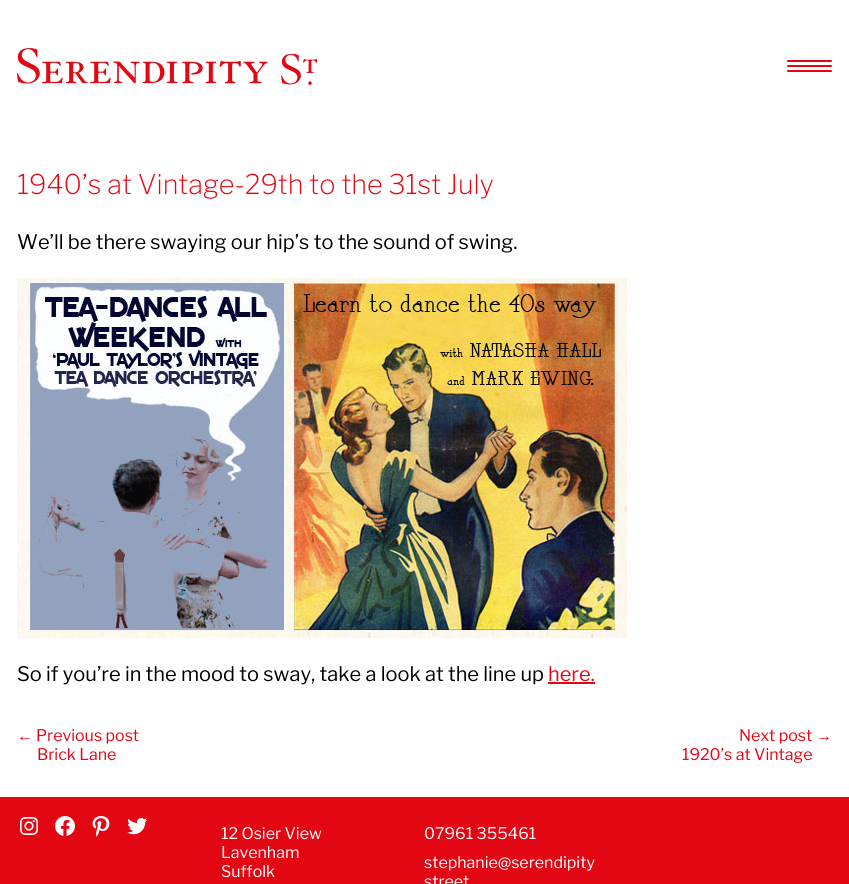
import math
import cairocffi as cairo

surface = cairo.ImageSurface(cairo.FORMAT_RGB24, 849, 884)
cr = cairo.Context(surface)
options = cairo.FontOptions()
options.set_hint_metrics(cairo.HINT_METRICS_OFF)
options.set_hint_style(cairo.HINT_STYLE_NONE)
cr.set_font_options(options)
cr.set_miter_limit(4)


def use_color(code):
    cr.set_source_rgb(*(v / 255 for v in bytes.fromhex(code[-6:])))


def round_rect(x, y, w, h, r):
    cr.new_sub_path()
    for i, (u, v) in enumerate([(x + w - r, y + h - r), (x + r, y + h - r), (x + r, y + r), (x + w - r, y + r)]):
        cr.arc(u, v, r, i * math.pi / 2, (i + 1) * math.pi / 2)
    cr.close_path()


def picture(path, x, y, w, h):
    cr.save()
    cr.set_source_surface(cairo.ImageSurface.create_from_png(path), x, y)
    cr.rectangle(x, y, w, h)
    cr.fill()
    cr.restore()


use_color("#ffffff")
cr.paint()
picture("img1.png", 17, 48, 300, 37)
use_color("#e30613")
round_rect(787, 65, 45, 2, 1)
cr.fill()
round_rect(787, 60, 45, 2, 1)
cr.fill()
round_rect(787, 70, 45, 2, 1)
cr.fill()
cr.select_font_face("Libre Franklin ExtraLight")
cr.set_font_size(27.1)
cr.move_to(17, 194)
cr.show_text("1940’s at Vintage-29th to the 31st July")
cr.select_font_face("Libre Franklin")
cr.set_font_size(20)
use_color("#000000")
cr.move_to(17, 249)
cr.show_text("We’ll be there swaying our hip’s to the sound of swing.")
picture("img2.png", 17, 278, 610, 360)
cr.move_to(17, 681)
cr.show_text("So if you’re in the mood to sway, take a look at the line up")
use_color("#e30613")
cr.move_to(548, 681)
cr.show_text("here.")
cr.rectangle(548, 682, 47, 2)
cr.fill()
cr.select_font_face("Liberation Sans")
cr.set_font_size(16)
cr.move_to(17, 741)
cr.show_text("←")
cr.select_font_face("Libre Franklin")
cr.move_to(36, 741)
cr.show_text("Previous post")
cr.move_to(37, 760)
cr.show_text("Brick Lane")
cr.move_to(739, 741)
cr.show_text("Next post")
cr.select_font_face("Liberation Sans")
cr.move_to(816, 741)
cr.show_text("→")
cr.select_font_face("Libre Franklin")
cr.move_to(682, 760)
cr.show_text("1920’s at Vintage")
cr.rectangle(0, 797, 849, 87)
cr.fill()
picture("img3.png", 20, 817, 18, 18)
picture("img4.png", 55, 816, 20, 20)
picture("img5.png", 92, 816, 18, 21)
picture("img6.png", 127, 818, 20, 17)
use_color("#ffffff")
cr.move_to(221, 839)
cr.show_text("12 Osier View")
cr.move_to(221, 858)
cr.show_text("Lavenham")
cr.move_to(221, 877)
cr.show_text("Suffolk")
cr.move_to(424, 839)
cr.show_text("07961 355461")
cr.move_to(424, 868)
cr.show_text("stephanie@serendipity")
cr.move_to(424, 887)
cr.show_text("street")
surface.write_to_png("result.png")
